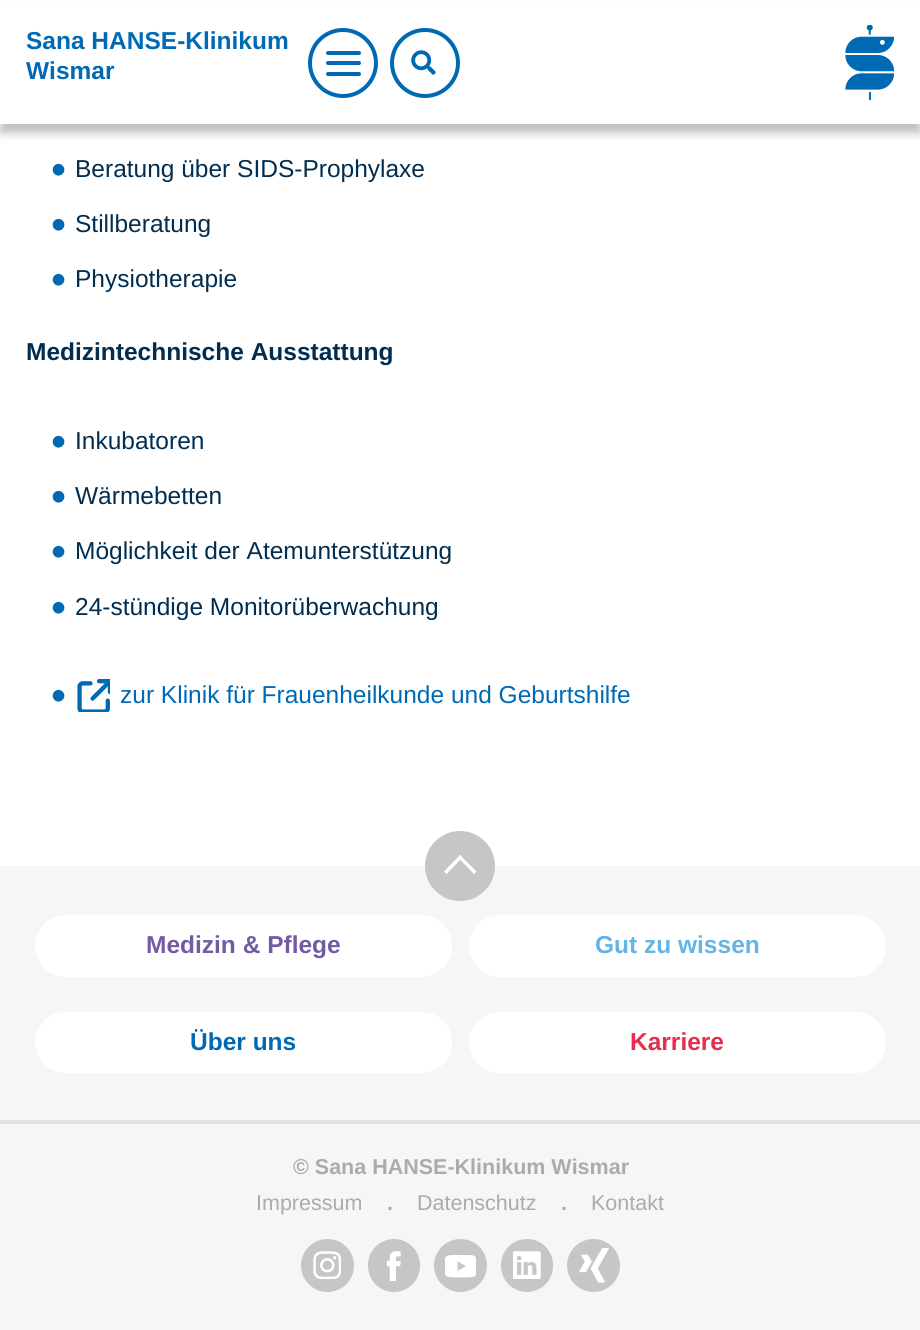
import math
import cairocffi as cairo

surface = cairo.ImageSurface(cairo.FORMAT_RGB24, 920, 1330)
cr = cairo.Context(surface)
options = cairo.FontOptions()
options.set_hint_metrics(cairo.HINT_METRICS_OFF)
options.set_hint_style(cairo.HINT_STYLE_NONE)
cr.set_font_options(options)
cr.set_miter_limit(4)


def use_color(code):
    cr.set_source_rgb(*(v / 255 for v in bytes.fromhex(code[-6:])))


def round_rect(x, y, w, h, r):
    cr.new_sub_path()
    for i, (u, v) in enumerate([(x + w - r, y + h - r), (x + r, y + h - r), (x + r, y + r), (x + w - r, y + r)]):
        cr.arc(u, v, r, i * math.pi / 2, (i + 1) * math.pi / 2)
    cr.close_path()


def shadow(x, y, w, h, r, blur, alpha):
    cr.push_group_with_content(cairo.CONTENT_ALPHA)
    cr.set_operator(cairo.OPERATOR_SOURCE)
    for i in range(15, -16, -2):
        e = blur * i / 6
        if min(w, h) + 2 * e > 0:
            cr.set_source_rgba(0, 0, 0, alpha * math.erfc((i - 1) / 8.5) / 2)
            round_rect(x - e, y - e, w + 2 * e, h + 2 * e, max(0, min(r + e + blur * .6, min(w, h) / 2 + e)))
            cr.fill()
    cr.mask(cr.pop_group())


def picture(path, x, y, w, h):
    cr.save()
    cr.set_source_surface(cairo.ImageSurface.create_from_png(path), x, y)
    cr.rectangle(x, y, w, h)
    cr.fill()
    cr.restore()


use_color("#ffffff")
cr.paint()
use_color("#000000")
shadow(0, 9, 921, 124, 0, 4.5, 0.25)
use_color("#ffffff")
cr.rectangle(0, 1, 920, 123)
cr.fill()
cr.select_font_face("Liberation Sans", cairo.FONT_SLANT_NORMAL, cairo.FONT_WEIGHT_BOLD)
cr.set_font_size(24.5)
use_color("#0069b4")
cr.move_to(26, 49)
cr.show_text("Sana HANSE-Klinikum")
cr.move_to(26, 79)
cr.show_text("Wismar")
cr.new_path()
cr.arc(343, 63, 33, 0, 2 * math.pi)
cr.set_line_width(4)
cr.stroke()
round_rect(326, 51, 35, 4, 2)
cr.fill()
round_rect(326, 61, 35, 4, 2)
cr.fill()
round_rect(326, 72, 35, 4, 2)
cr.fill()
cr.arc(425, 63, 33, 0, 2 * math.pi)
cr.stroke()
picture("img1.png", 411, 50, 25, 25)
picture("img2.png", 845, 25, 49, 75)
cr.select_font_face("Liberation Sans")
cr.set_font_size(43)
cr.move_to(51, 184)
cr.show_text("•")
cr.set_font_size(24.5)
use_color("#002d50")
cr.move_to(75, 177)
cr.show_text("Beratung über SIDS-Prophylaxe")
cr.set_font_size(43)
use_color("#0069b4")
cr.move_to(51, 239)
cr.show_text("•")
cr.set_font_size(24.5)
use_color("#002d50")
cr.move_to(75, 232)
cr.show_text("Stillberatung")
cr.set_font_size(43)
use_color("#0069b4")
cr.move_to(51, 294)
cr.show_text("•")
cr.set_font_size(24.5)
use_color("#002d50")
cr.move_to(75, 287)
cr.show_text("Physiotherapie")
cr.select_font_face("Liberation Sans", cairo.FONT_SLANT_NORMAL, cairo.FONT_WEIGHT_BOLD)
cr.move_to(26, 360)
cr.show_text("Medizintechnische Ausstattung")
cr.select_font_face("Liberation Sans")
cr.set_font_size(43)
use_color("#0069b4")
cr.move_to(51, 456)
cr.show_text("•")
cr.set_font_size(24.5)
use_color("#002d50")
cr.move_to(75, 449)
cr.show_text("Inkubatoren")
cr.set_font_size(43)
use_color("#0069b4")
cr.move_to(51, 511)
cr.show_text("•")
cr.set_font_size(24.5)
use_color("#002d50")
cr.move_to(75, 504)
cr.show_text("Wärmebetten")
cr.set_font_size(43)
use_color("#0069b4")
cr.move_to(51, 566)
cr.show_text("•")
cr.set_font_size(24.5)
use_color("#002d50")
cr.move_to(75, 559)
cr.show_text("Möglichkeit der Atemunterstützung")
cr.set_font_size(43)
use_color("#0069b4")
cr.move_to(51, 622)
cr.show_text("•")
cr.set_font_size(24.5)
use_color("#002d50")
cr.move_to(75, 615)
cr.show_text("24-stündige Monitorüberwachung")
cr.set_font_size(43)
use_color("#0069b4")
cr.move_to(51, 710)
cr.show_text("•")
picture("img3.png", 77, 679, 33, 33)
cr.set_font_size(24.5)
cr.move_to(120, 703)
cr.show_text("zur Klinik für Frauenheilkunde und Geburtshilfe")
use_color("#f6f6f6")
cr.rectangle(0, 866, 920, 464)
cr.fill()
use_color("#c6c6c6")
cr.arc(460, 866, 35, 0, 2 * math.pi)
cr.fill()
use_color("#ffffff")
cr.new_path()
cr.move_to(460, 855)
cr.line_to(476.5, 871.5)
cr.line_to(474, 874)
cr.line_to(458, 857.5)
cr.close_path()
cr.fill()
cr.new_path()
cr.move_to(460, 855)
cr.line_to(462.5, 857.5)
cr.line_to(446.5, 874)
cr.line_to(444, 871.5)
cr.close_path()
cr.fill()
round_rect(35, 915, 417, 62, 31)
cr.fill()
cr.select_font_face("Liberation Sans", cairo.FONT_SLANT_NORMAL, cairo.FONT_WEIGHT_BOLD)
use_color("#735aa5")
cr.move_to(146, 953)
cr.show_text("Medizin & Pflege")
use_color("#ffffff")
round_rect(469, 915, 417, 62, 31)
cr.fill()
use_color("#64b4e6")
cr.move_to(595, 953)
cr.show_text("Gut zu wissen")
use_color("#ffffff")
round_rect(35, 1012, 417, 61, 30.5)
cr.fill()
use_color("#0069b4")
cr.move_to(190, 1050)
cr.show_text("Über uns")
use_color("#ffffff")
round_rect(469, 1012, 417, 61, 30.5)
cr.fill()
use_color("#e62d4b")
cr.move_to(630, 1050)
cr.show_text("Karriere")
use_color("#e2e2e2")
cr.rectangle(0, 1120, 920, 4)
cr.fill()
cr.set_font_size(21.5)
use_color("#ababab")
cr.move_to(293, 1174)
cr.show_text("© Sana HANSE-Klinikum Wismar")
cr.select_font_face("Liberation Sans")
cr.move_to(256, 1210)
cr.show_text("Impressum")
cr.select_font_face("Liberation Sans", cairo.FONT_SLANT_NORMAL, cairo.FONT_WEIGHT_BOLD)
cr.move_to(387, 1210)
cr.show_text(".")
cr.select_font_face("Liberation Sans")
cr.move_to(417, 1210)
cr.show_text("Datenschutz")
cr.select_font_face("Liberation Sans", cairo.FONT_SLANT_NORMAL, cairo.FONT_WEIGHT_BOLD)
cr.move_to(561, 1210)
cr.show_text(".")
cr.select_font_face("Liberation Sans")
cr.move_to(591, 1210)
cr.show_text("Kontakt")
use_color("#c6c6c6")
cr.new_path()
cr.arc(327.5, 1265.5, 26.5, 0, 2 * math.pi)
cr.fill()
picture("img4.png", 313, 1251, 28, 28)
round_rect(368, 1239, 52, 53, 26)
cr.fill()
picture("img5.png", 387, 1251, 14, 30)
cr.arc(460.5, 1265.5, 26.5, 0, 2 * math.pi)
cr.fill()
picture("img6.png", 445, 1255, 31, 23)
round_rect(501, 1239, 52, 53, 26)
cr.fill()
picture("img7.png", 513, 1251, 28, 28)
cr.arc(593.5, 1265.5, 26.5, 0, 2 * math.pi)
cr.fill()
picture("img8.png", 579, 1248, 30, 35)
surface.write_to_png("result.png")
